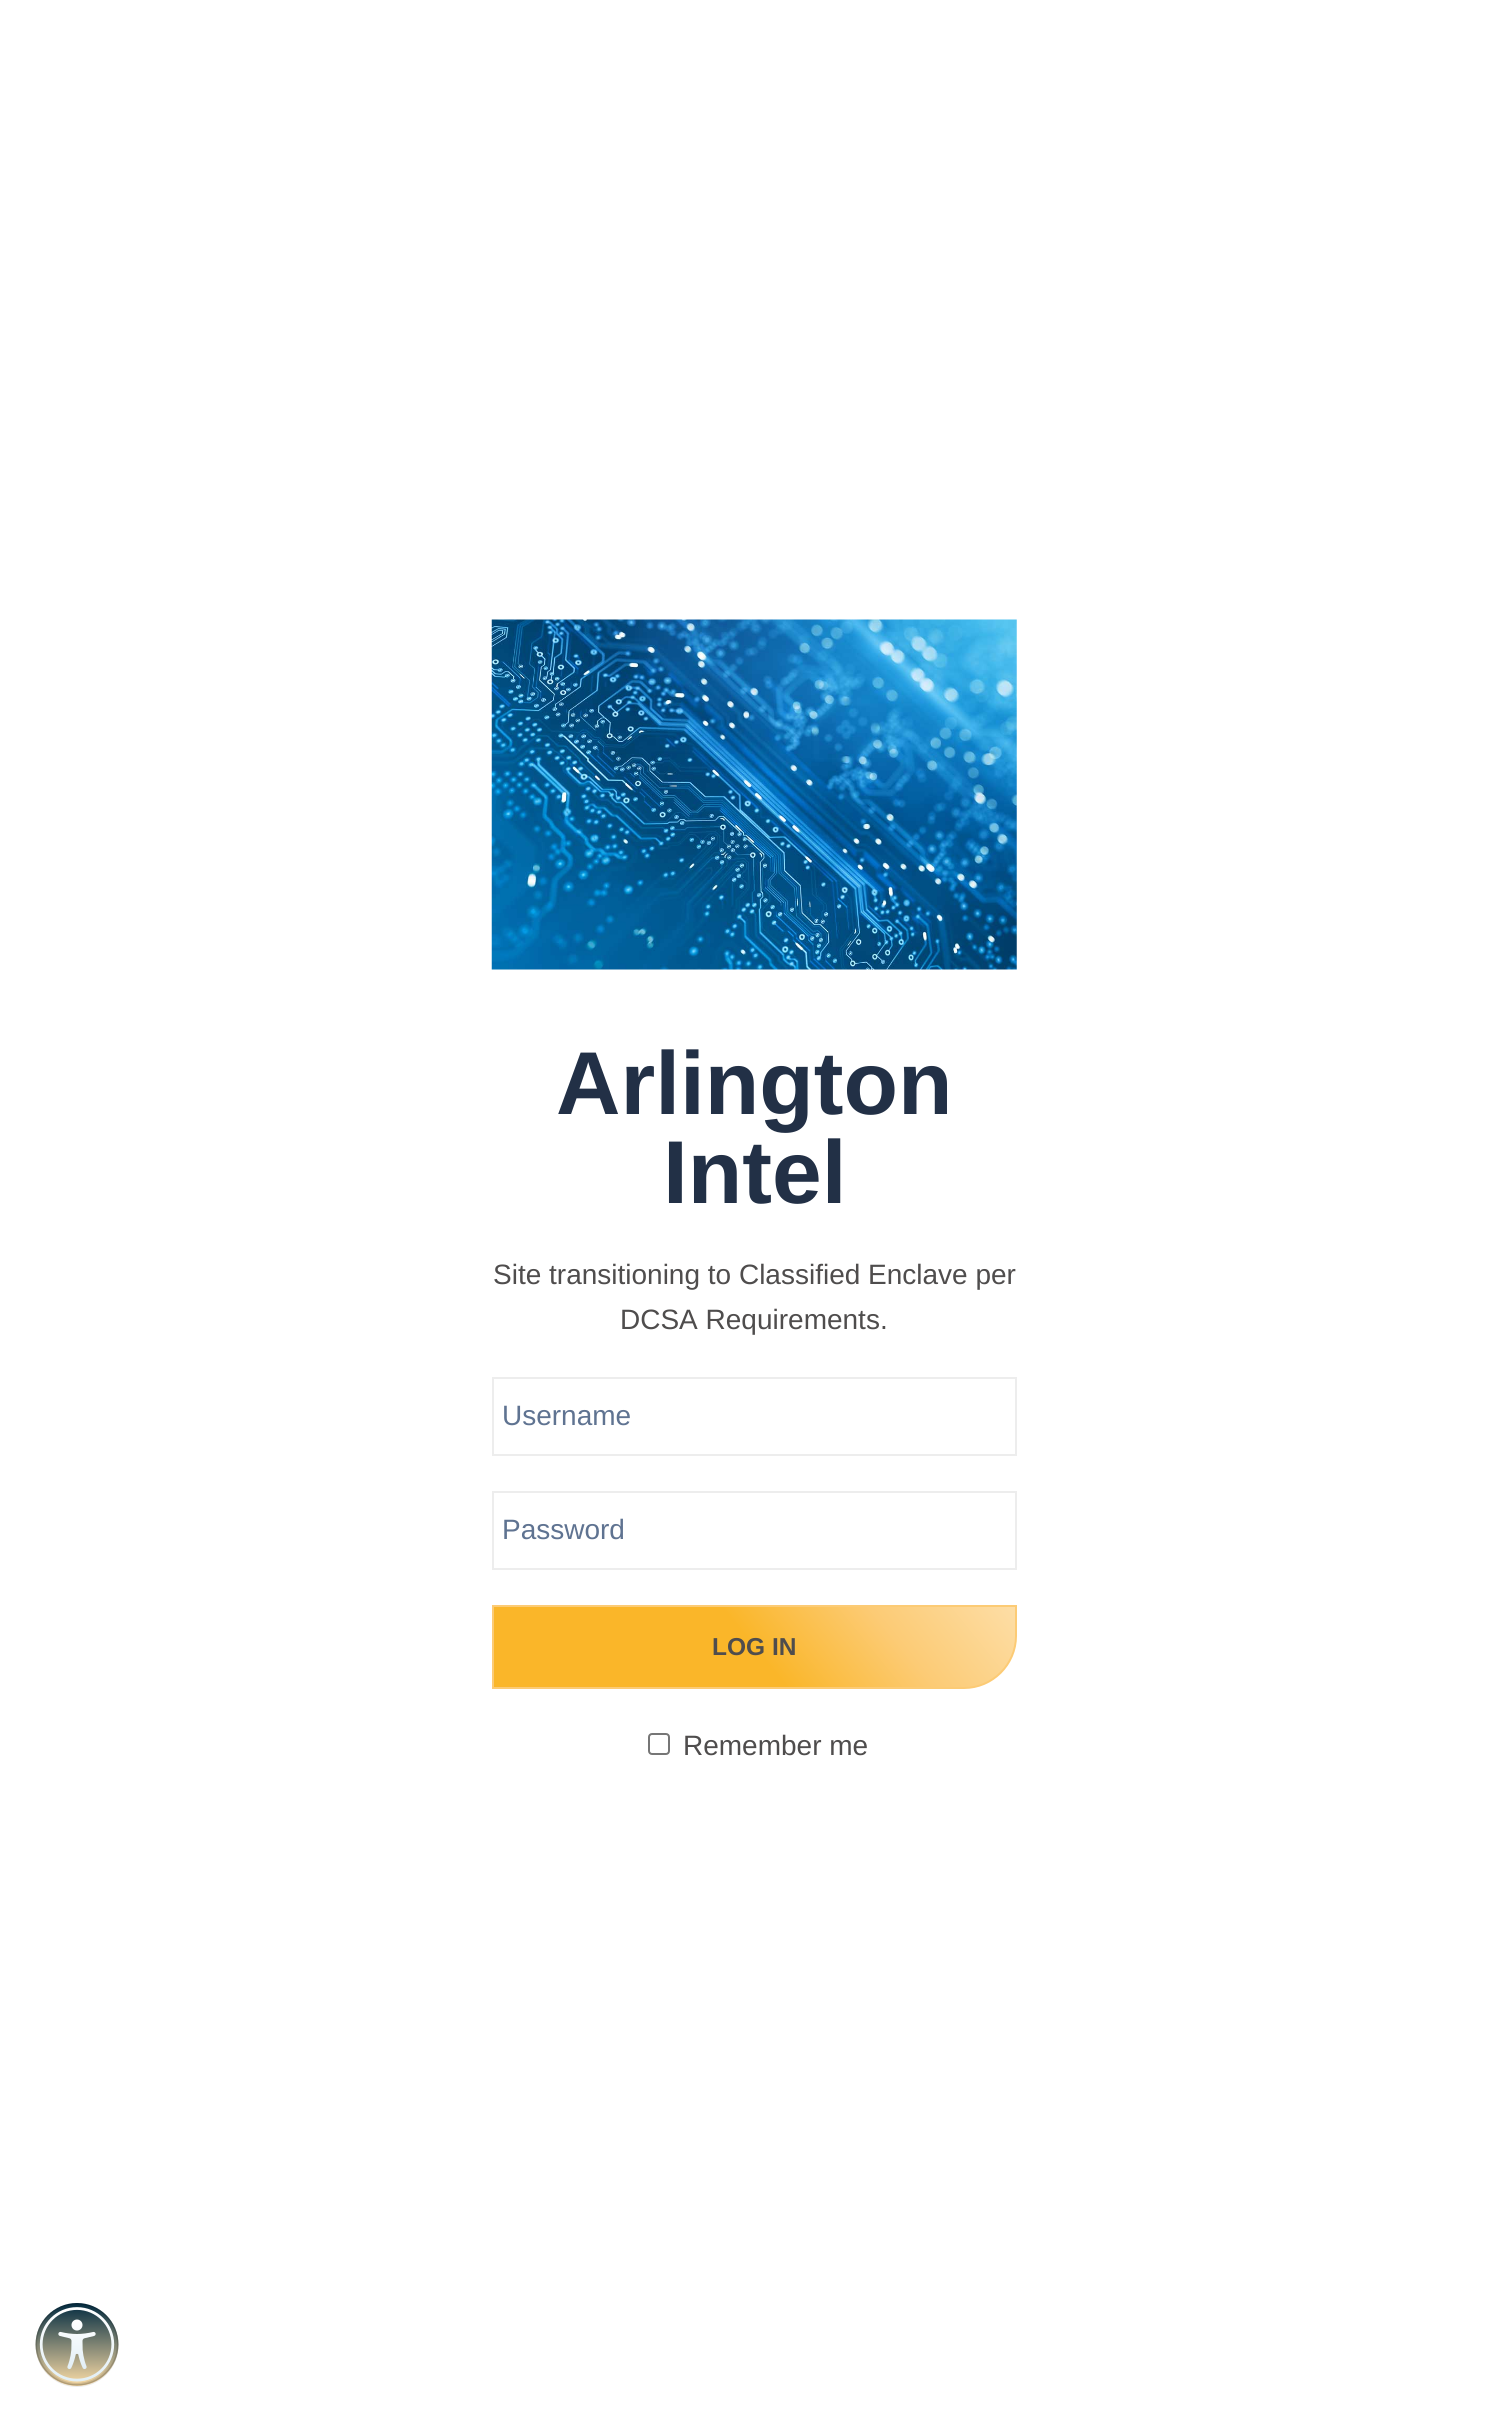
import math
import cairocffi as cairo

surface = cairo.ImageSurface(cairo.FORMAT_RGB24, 1508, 2422)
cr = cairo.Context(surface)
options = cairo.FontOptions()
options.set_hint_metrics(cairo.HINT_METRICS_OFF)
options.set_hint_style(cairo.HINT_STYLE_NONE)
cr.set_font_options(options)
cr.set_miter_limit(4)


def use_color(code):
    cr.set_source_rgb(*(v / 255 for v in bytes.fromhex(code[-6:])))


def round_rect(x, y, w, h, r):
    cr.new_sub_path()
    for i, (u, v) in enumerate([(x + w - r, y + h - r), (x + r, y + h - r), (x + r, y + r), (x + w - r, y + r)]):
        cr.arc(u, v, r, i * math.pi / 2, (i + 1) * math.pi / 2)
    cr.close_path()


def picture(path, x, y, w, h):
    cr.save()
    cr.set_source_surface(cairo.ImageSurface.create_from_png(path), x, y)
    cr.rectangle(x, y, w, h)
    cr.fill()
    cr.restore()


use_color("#ffffff")
cr.paint()
picture("img1.png", 491, 619, 526, 351)
cr.select_font_face("Liberation Sans", cairo.FONT_SLANT_NORMAL, cairo.FONT_WEIGHT_BOLD)
cr.set_font_size(89.25)
use_color("#223046")
cr.move_to(556, 1114)
cr.show_text("Arlington")
cr.move_to(663, 1203)
cr.show_text("Intel")
cr.select_font_face("Liberation Sans")
cr.set_font_size(28)
use_color("#4f4d4d")
cr.move_to(493, 1284)
cr.show_text("Site transitioning to Classified Enclave per")
cr.move_to(620, 1329)
cr.show_text("DCSA Requirements.")
cr.rectangle(493, 1378, 523, 77)
use_color("#ededed")
cr.stroke()
use_color("#5f7391")
cr.move_to(502, 1425)
cr.show_text("Username")
cr.rectangle(493, 1492, 523, 77)
use_color("#ededed")
cr.stroke()
use_color("#5f7391")
cr.move_to(502, 1539)
cr.show_text("Password")
gradient = cairo.LinearGradient(575, 1792, 933, 1502)
gradient.add_color_stop_rgba(0.5, 0.98, 0.714, 0.161, 1)
gradient.add_color_stop_rgba(0.75, 0.988, 0.796, 0.459, 1)
gradient.add_color_stop_rgba(1, 0.992, 0.871, 0.655, 1)
cr.set_source(gradient)
cr.new_path()
cr.move_to(493, 1606)
cr.line_to(1016, 1606)
cr.line_to(1016, 1636)
cr.curve_to(1016, 1664.5, 992.5, 1688, 964, 1688)
cr.line_to(493, 1688)
cr.close_path()
cr.fill_preserve()
use_color("#fccb75")
cr.stroke()
cr.select_font_face("Liberation Sans", cairo.FONT_SLANT_NORMAL, cairo.FONT_WEIGHT_BOLD)
cr.set_font_size(24.5)
use_color("#4f4d4d")
cr.move_to(712, 1655)
cr.show_text("LOG IN")
round_rect(649, 1734, 20, 20, 3)
use_color("#767676")
cr.stroke()
cr.select_font_face("Liberation Sans")
cr.set_font_size(28)
use_color("#4f4d4d")
cr.move_to(683, 1755)
cr.show_text("Remember me")
picture("img2.png", 35, 2303, 84, 84)
surface.write_to_png("result.png")
